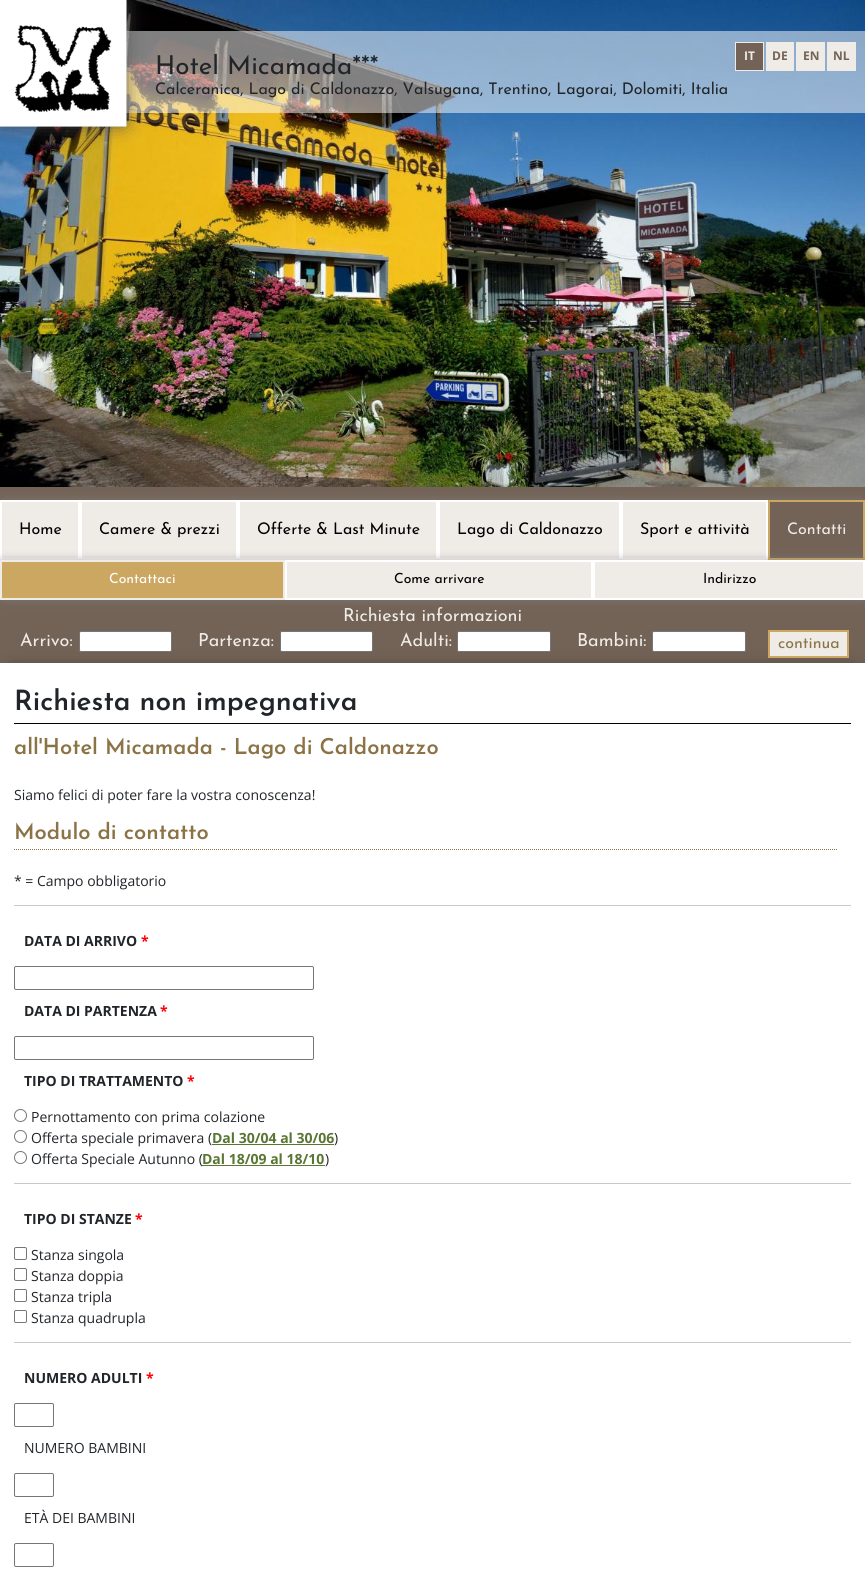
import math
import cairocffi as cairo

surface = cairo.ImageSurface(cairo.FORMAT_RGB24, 865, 1573)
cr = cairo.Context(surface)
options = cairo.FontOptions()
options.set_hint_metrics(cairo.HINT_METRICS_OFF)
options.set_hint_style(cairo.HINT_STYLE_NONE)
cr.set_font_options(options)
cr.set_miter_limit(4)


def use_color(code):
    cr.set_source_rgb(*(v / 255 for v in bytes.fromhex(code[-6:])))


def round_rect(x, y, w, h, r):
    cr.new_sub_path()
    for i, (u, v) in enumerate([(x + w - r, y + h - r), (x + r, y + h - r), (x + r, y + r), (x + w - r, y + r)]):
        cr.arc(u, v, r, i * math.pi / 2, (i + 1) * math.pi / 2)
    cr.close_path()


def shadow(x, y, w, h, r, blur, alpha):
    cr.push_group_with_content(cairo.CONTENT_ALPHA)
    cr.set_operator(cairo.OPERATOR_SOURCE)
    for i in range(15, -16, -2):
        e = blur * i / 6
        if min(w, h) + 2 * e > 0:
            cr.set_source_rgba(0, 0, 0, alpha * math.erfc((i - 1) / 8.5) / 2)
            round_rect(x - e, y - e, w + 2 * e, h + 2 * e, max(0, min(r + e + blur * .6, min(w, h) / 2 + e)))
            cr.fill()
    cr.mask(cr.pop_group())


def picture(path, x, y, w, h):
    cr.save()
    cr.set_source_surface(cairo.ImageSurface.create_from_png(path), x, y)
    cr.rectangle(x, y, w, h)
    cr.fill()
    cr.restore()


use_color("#736357")
cr.paint()
picture("img1.png", 0, 0, 865, 487)
cr.set_source_rgba(1, 1, 1, 0.5)
cr.rectangle(126, 31, 739, 82)
cr.fill()
use_color("#505050")
shadow(3, 2, 121, 122, 0, 10, 1)
picture("img2.png", 0, 0, 127, 127)
cr.select_font_face("Josefin Sans Thin")
cr.set_font_size(26)
use_color("#212529")
cr.move_to(155, 74)
cr.show_text("Hotel Micamada***")
cr.set_font_size(16)
cr.move_to(155, 94)
cr.show_text("Calceranica, Lago di Caldonazzo, Valsugana, Trentino, Lagorai, Dolomiti, Italia")
use_color("#736357")
cr.rectangle(735.5, 42.5, 28, 28)
cr.fill_preserve()
use_color("#efebe6")
cr.set_line_width(1)
cr.stroke()
cr.select_font_face("Open Sans", cairo.FONT_SLANT_NORMAL, cairo.FONT_WEIGHT_BOLD)
cr.set_font_size(12)
cr.move_to(744, 60)
cr.show_text("IT")
cr.rectangle(766, 42, 28, 29)
cr.fill()
use_color("#736357")
cr.move_to(772, 60)
cr.show_text("DE")
use_color("#efebe6")
cr.rectangle(796, 42, 29, 29)
cr.fill()
use_color("#736357")
cr.move_to(803, 60)
cr.show_text("EN")
use_color("#efebe6")
cr.rectangle(827, 42, 29, 29)
cr.fill()
use_color("#736357")
cr.move_to(833, 60)
cr.show_text("NL")
use_color("#808080")
shadow(2, 502, 861, 56, 0, 5, 1)
use_color("#efebe6")
cr.rectangle(1, 501, 78, 58)
cr.fill_preserve()
use_color("#ffffff")
cr.set_line_width(2)
cr.stroke()
cr.select_font_face("Josefin Sans Thin")
cr.set_font_size(16)
use_color("#000000")
cr.move_to(19, 534)
cr.show_text("Home")
use_color("#efebe6")
cr.rectangle(81, 501, 156, 58)
cr.fill_preserve()
use_color("#ffffff")
cr.stroke()
use_color("#000000")
cr.move_to(99, 534)
cr.show_text("Camere & prezzi")
use_color("#efebe6")
cr.rectangle(239, 501, 198, 58)
cr.fill_preserve()
use_color("#ffffff")
cr.stroke()
use_color("#000000")
cr.move_to(257, 534)
cr.show_text("Offerte & Last Minute")
use_color("#efebe6")
cr.rectangle(439, 501, 181, 58)
cr.fill_preserve()
use_color("#ffffff")
cr.stroke()
use_color("#000000")
cr.move_to(457, 534)
cr.show_text("Lago di Caldonazzo")
use_color("#efebe6")
cr.rectangle(622, 501, 145, 58)
cr.fill_preserve()
use_color("#ffffff")
cr.stroke()
use_color("#000000")
cr.move_to(640, 534)
cr.show_text("Sport e attività")
use_color("#736357")
cr.rectangle(769, 501, 95, 58)
cr.fill_preserve()
use_color("#cba762")
cr.stroke()
use_color("#efebe6")
cr.move_to(787, 534)
cr.show_text("Contatti")
use_color("#808080")
shadow(2, 562, 861, 36, 0, 5, 1)
use_color("#cba762")
cr.rectangle(1, 561, 283, 38)
cr.fill_preserve()
use_color("#efebe6")
cr.stroke()
cr.set_font_size(14)
use_color("#ffffff")
cr.move_to(109, 583)
cr.show_text("Contattaci")
use_color("#efebe6")
cr.rectangle(286, 561, 306, 38)
cr.fill_preserve()
use_color("#ffffff")
cr.stroke()
use_color("#000000")
cr.move_to(394, 583)
cr.show_text("Come arrivare")
use_color("#efebe6")
cr.rectangle(594, 561, 270, 38)
cr.fill_preserve()
use_color("#ffffff")
cr.stroke()
use_color("#000000")
cr.move_to(703, 583)
cr.show_text("Indirizzo")
cr.set_font_size(18)
use_color("#efebe6")
cr.move_to(343, 621)
cr.show_text("Richiesta informazioni")
use_color("#000000")
shadow(12, 675, 841, 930, 0, 10.5, 1)
use_color("#efebe6")
cr.move_to(20, 646)
cr.show_text("Arrivo:")
use_color("#ffffff")
round_rect(79.5, 631.5, 92, 20, 1.5)
cr.fill_preserve()
use_color("#767676")
cr.set_line_width(1)
cr.stroke()
use_color("#efebe6")
cr.move_to(198, 646)
cr.show_text("Partenza:")
use_color("#ffffff")
round_rect(280.5, 631.5, 92, 20, 1.5)
cr.fill_preserve()
use_color("#767676")
cr.stroke()
use_color("#efebe6")
cr.move_to(400, 646)
cr.show_text("Adulti:")
use_color("#ffffff")
round_rect(457.5, 631.5, 93, 20, 1.5)
cr.fill_preserve()
use_color("#767676")
cr.stroke()
use_color("#efebe6")
cr.move_to(577, 646)
cr.show_text("Bambini:")
use_color("#ffffff")
round_rect(652.5, 631.5, 93, 20, 1.5)
cr.fill_preserve()
use_color("#767676")
cr.stroke()
use_color("#efebe6")
cr.rectangle(769, 631, 79, 26)
cr.fill_preserve()
use_color("#cba762")
cr.set_line_width(2)
cr.stroke()
cr.set_font_size(16)
use_color("#8b7346")
cr.move_to(778, 648)
cr.show_text("continua")
use_color("#ffffff")
cr.rectangle(0, 663, 865, 910)
cr.fill()
use_color("#000000")
cr.rectangle(14, 723, 837, 1)
cr.fill()
cr.select_font_face("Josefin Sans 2 Thin")
cr.set_font_size(28)
use_color("#212529")
cr.move_to(14, 710)
cr.show_text("Richiesta non impegnativa")
cr.set_font_size(22)
use_color("#8b7346")
cr.move_to(14, 754)
cr.show_text("all'Hotel Micamada - Lago di Caldonazzo")
cr.select_font_face("Open Sans")
cr.set_font_size(14)
use_color("#212529")
cr.move_to(14, 800)
cr.show_text("Siamo felici di poter fare la vostra conoscenza!")
cr.new_path()
cr.move_to(14, 849.5)
cr.line_to(837, 849.5)
use_color("#8b7346")
cr.set_line_width(1)
cr.set_dash([1, 1])
cr.stroke()
cr.select_font_face("Josefin Sans 2 Thin")
cr.set_font_size(22)
cr.move_to(14, 839)
cr.show_text("Modulo di contatto")
cr.select_font_face("Open Sans")
cr.set_font_size(14)
use_color("#212529")
cr.move_to(14, 886)
cr.show_text("* = Campo obbligatorio")
use_color("#c8c9ca")
cr.rectangle(14, 905, 837, 1)
cr.fill()
cr.select_font_face("Open Sans", cairo.FONT_SLANT_NORMAL, cairo.FONT_WEIGHT_BOLD)
use_color("#212529")
cr.move_to(24, 946)
cr.show_text("DATA DI ARRIVO")
use_color("#ff0000")
cr.move_to(141, 946)
cr.show_text("*")
round_rect(14.5, 966.5, 299, 23, 1.5)
use_color("#767676")
cr.set_dash([])
cr.stroke()
use_color("#212529")
cr.move_to(24, 1016)
cr.show_text("DATA DI PARTENZA")
use_color("#ff0000")
cr.move_to(160, 1016)
cr.show_text("*")
round_rect(14.5, 1036.5, 299, 23, 1.5)
use_color("#767676")
cr.stroke()
use_color("#212529")
cr.move_to(24, 1086)
cr.show_text("TIPO DI TRATTAMENTO")
use_color("#ff0000")
cr.move_to(187, 1086)
cr.show_text("*")
cr.new_path()
cr.arc(20.5, 1115.5, 6, 0, 2 * math.pi)
use_color("#767676")
cr.stroke()
cr.select_font_face("Open Sans")
use_color("#212529")
cr.move_to(31, 1122)
cr.show_text("Pernottamento con prima colazione")
cr.new_path()
cr.arc(20.5, 1136.5, 6, 0, 2 * math.pi)
use_color("#767676")
cr.stroke()
use_color("#212529")
cr.move_to(31, 1143)
cr.show_text("Offerta speciale primavera (")
cr.select_font_face("Open Sans", cairo.FONT_SLANT_NORMAL, cairo.FONT_WEIGHT_BOLD)
use_color("#597633")
cr.move_to(212, 1143)
cr.show_text("Dal 30/04 al 30/06")
cr.rectangle(212, 1144, 122, 1)
cr.fill()
cr.select_font_face("Open Sans")
use_color("#212529")
cr.move_to(334, 1143)
cr.show_text(")")
cr.new_path()
cr.arc(20.5, 1157.5, 6, 0, 2 * math.pi)
use_color("#767676")
cr.stroke()
use_color("#212529")
cr.move_to(31, 1164)
cr.show_text("Offerta Speciale Autunno (")
cr.select_font_face("Open Sans", cairo.FONT_SLANT_NORMAL, cairo.FONT_WEIGHT_BOLD)
use_color("#597633")
cr.move_to(202, 1164)
cr.show_text("Dal 18/09 al 18/10")
cr.rectangle(202, 1165, 123, 1)
cr.fill()
cr.select_font_face("Open Sans")
use_color("#212529")
cr.move_to(325, 1164)
cr.show_text(")")
use_color("#c8c9ca")
cr.rectangle(14, 1183, 837, 1)
cr.fill()
cr.select_font_face("Open Sans", cairo.FONT_SLANT_NORMAL, cairo.FONT_WEIGHT_BOLD)
use_color("#212529")
cr.move_to(24, 1224)
cr.show_text("TIPO DI STANZE")
use_color("#ff0000")
cr.move_to(135, 1224)
cr.show_text("*")
round_rect(14.5, 1247.5, 12, 12, 1.5)
use_color("#767676")
cr.stroke()
cr.select_font_face("Open Sans")
use_color("#212529")
cr.move_to(31, 1260)
cr.show_text("Stanza singola")
round_rect(14.5, 1268.5, 12, 12, 1.5)
use_color("#767676")
cr.stroke()
use_color("#212529")
cr.move_to(31, 1281)
cr.show_text("Stanza doppia")
round_rect(14.5, 1289.5, 12, 12, 1.5)
use_color("#767676")
cr.stroke()
use_color("#212529")
cr.move_to(31, 1302)
cr.show_text("Stanza tripla")
round_rect(14.5, 1310.5, 12, 12, 1.5)
use_color("#767676")
cr.stroke()
use_color("#212529")
cr.move_to(31, 1323)
cr.show_text("Stanza quadrupla")
use_color("#c8c9ca")
cr.rectangle(14, 1342, 837, 1)
cr.fill()
cr.select_font_face("Open Sans", cairo.FONT_SLANT_NORMAL, cairo.FONT_WEIGHT_BOLD)
use_color("#212529")
cr.move_to(24, 1383)
cr.show_text("NUMERO ADULTI")
use_color("#ff0000")
cr.move_to(146, 1383)
cr.show_text("*")
round_rect(14.5, 1403.5, 39, 23, 1.5)
use_color("#767676")
cr.stroke()
cr.select_font_face("Open Sans")
use_color("#212529")
cr.move_to(24, 1453)
cr.show_text("NUMERO BAMBINI")
round_rect(14.5, 1473.5, 39, 23, 1.5)
use_color("#767676")
cr.stroke()
use_color("#212529")
cr.move_to(24, 1523)
cr.show_text("ETÀ DEI BAMBINI")
round_rect(14.5, 1543.5, 39, 23, 1.5)
use_color("#767676")
cr.stroke()
surface.write_to_png("result.png")
